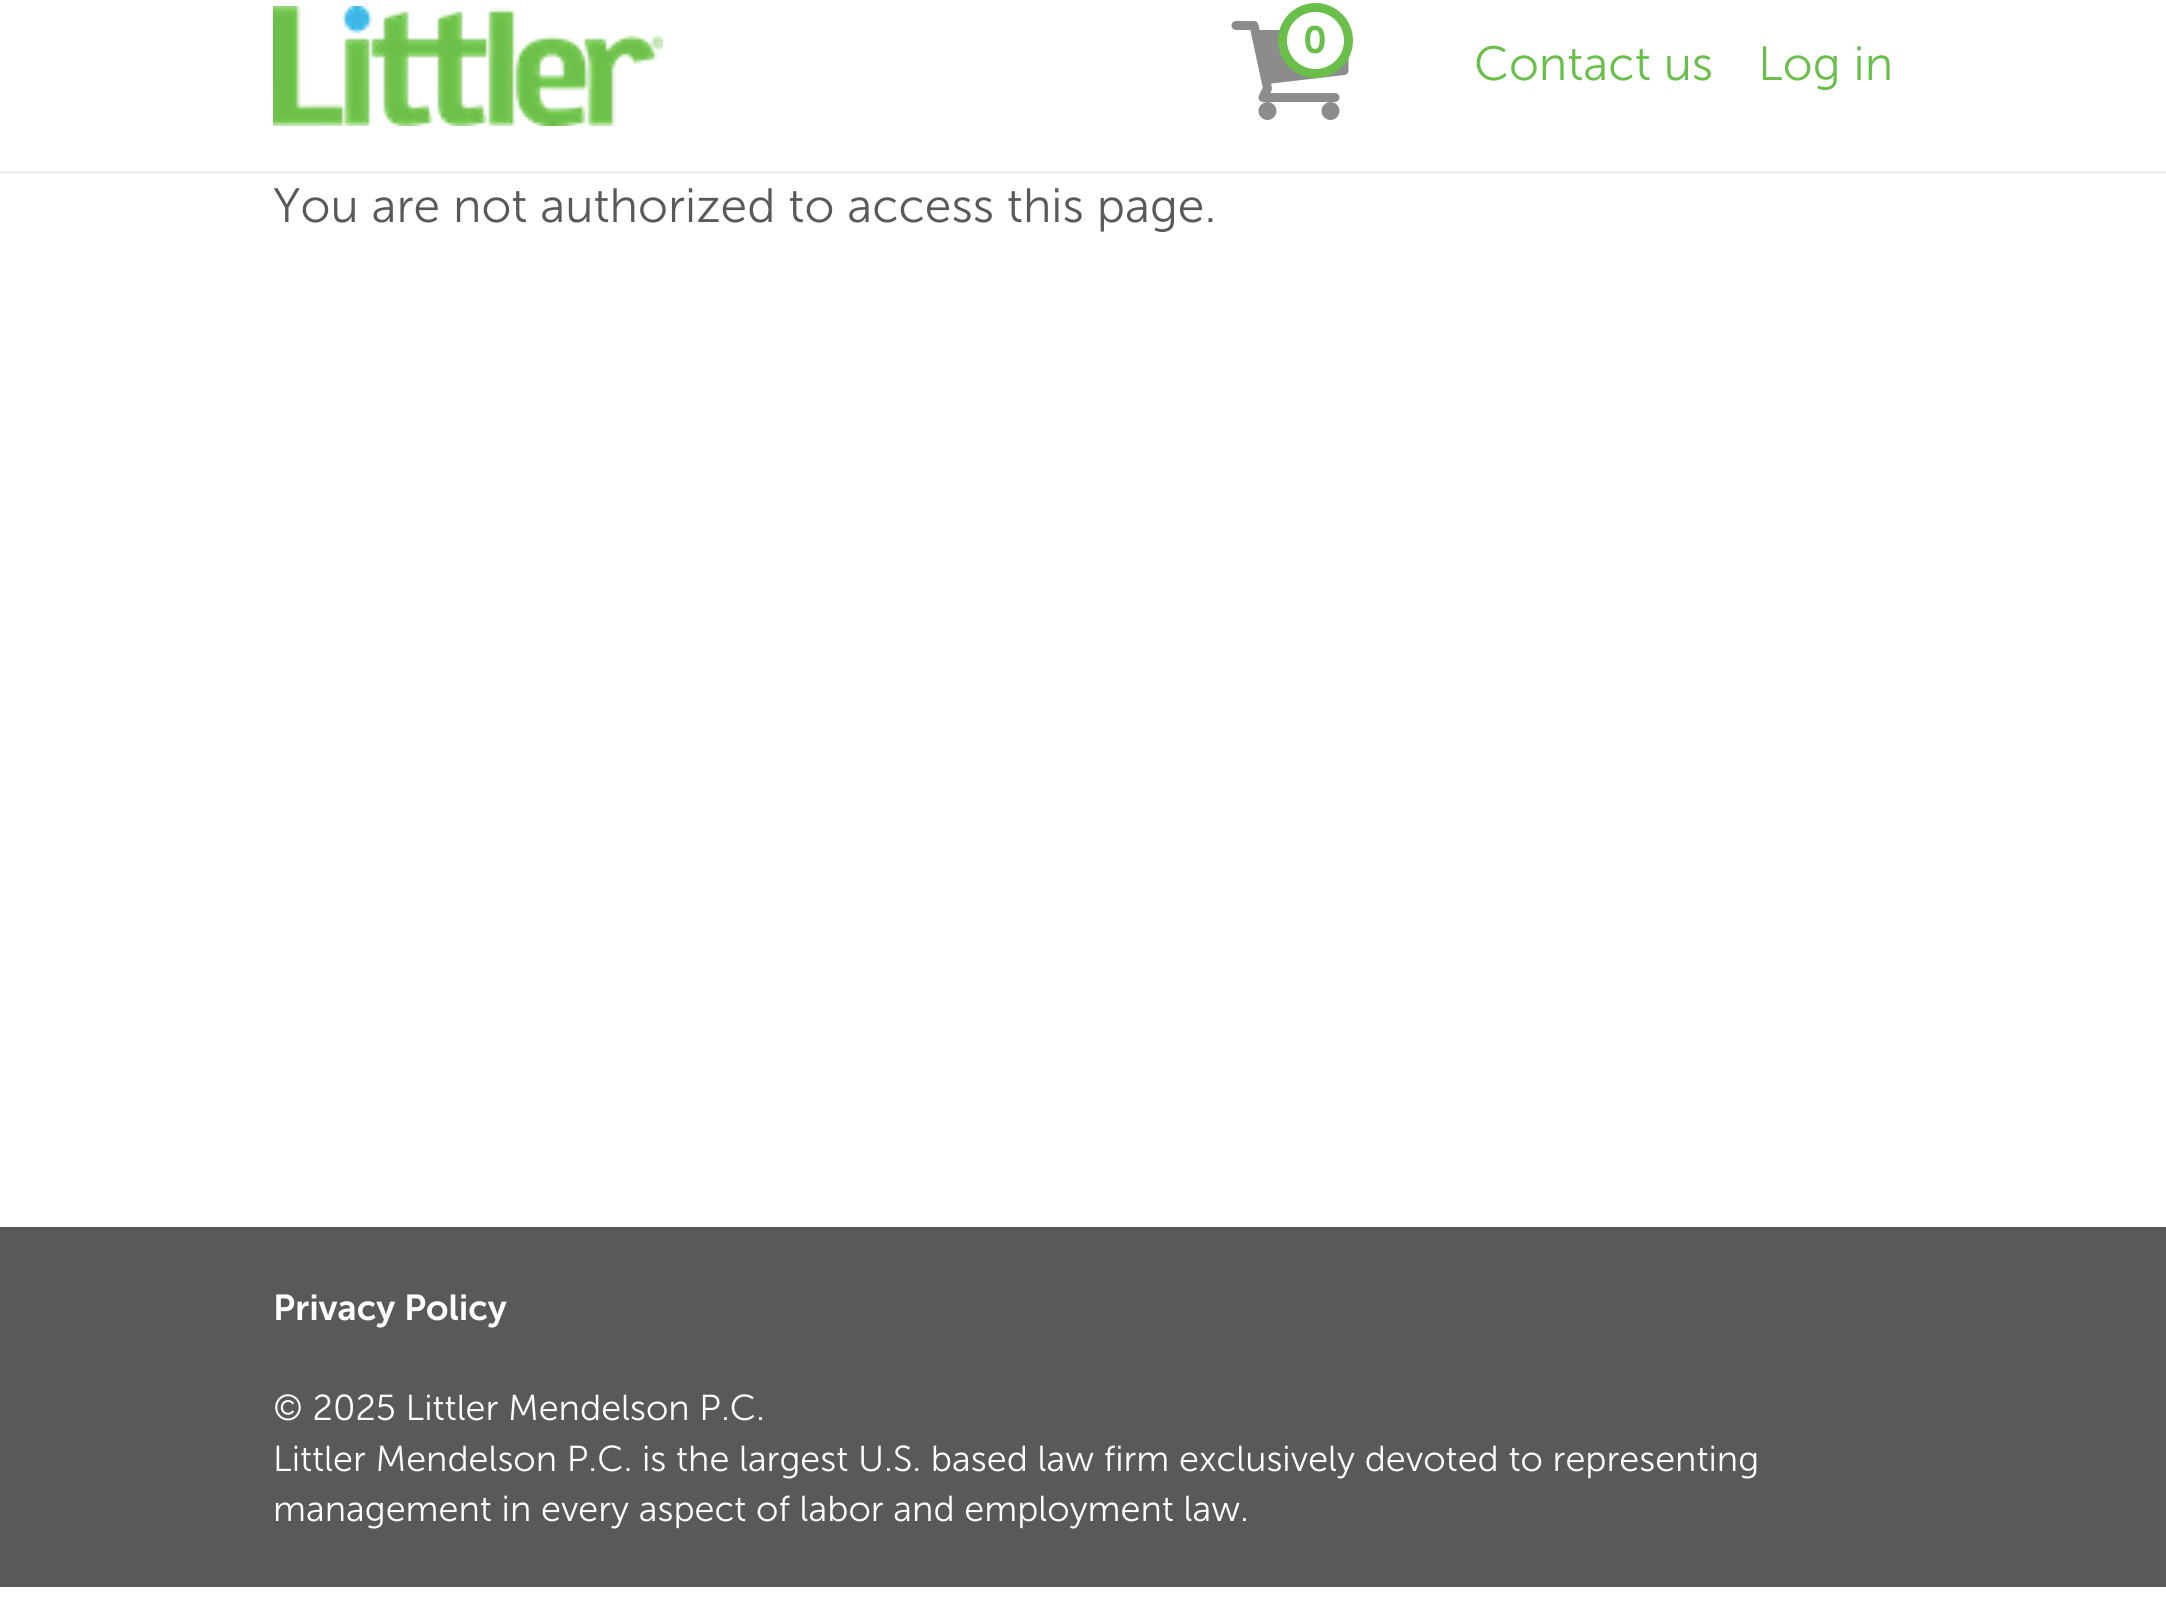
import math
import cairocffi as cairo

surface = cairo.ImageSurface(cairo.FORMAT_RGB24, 2166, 1624)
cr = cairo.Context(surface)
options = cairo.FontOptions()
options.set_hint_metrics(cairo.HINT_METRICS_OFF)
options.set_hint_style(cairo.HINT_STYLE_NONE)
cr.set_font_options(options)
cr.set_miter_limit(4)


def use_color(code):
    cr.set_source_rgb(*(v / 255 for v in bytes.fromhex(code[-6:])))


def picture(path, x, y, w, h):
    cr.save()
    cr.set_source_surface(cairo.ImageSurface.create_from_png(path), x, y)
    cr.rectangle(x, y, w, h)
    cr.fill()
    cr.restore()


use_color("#ffffff")
cr.paint()
use_color("#eeeeee")
cr.rectangle(0, 171, 2166, 3)
cr.fill()
picture("img1.png", 273, 6, 390, 120)
picture("img2.png", 1231, 21, 118, 99)
use_color("#ffffff")
cr.arc(1315.5, 40.5, 33, 0, 2 * math.pi)
cr.fill_preserve()
use_color("#6abf4b")
cr.set_line_width(9)
cr.stroke()
cr.select_font_face("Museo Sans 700 SemiBold")
cr.set_font_size(38)
cr.move_to(1303, 53)
cr.show_text("0")
cr.select_font_face("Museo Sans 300 Light")
cr.set_font_size(48)
cr.move_to(1474, 80)
cr.show_text("Contact us")
cr.move_to(1758, 80)
cr.show_text("Log in")
use_color("#58595b")
cr.move_to(273, 222)
cr.show_text("You are not authorized to access this page.")
cr.rectangle(0, 1227, 2166, 360)
cr.fill()
cr.select_font_face("Museo Sans 700 SemiBold")
cr.set_font_size(36)
use_color("#ffffff")
cr.move_to(273, 1320)
cr.show_text("Privacy Policy")
cr.select_font_face("Museo Sans 300 Light")
cr.move_to(273, 1420)
cr.show_text("© 2025 Littler Mendelson P.C.")
cr.move_to(273, 1471)
cr.show_text("Littler Mendelson P.C. is the largest U.S. based law firm exclusively devoted to representing")
cr.move_to(273, 1521)
cr.show_text("management in every aspect of labor and employment law.")
surface.write_to_png("result.png")
